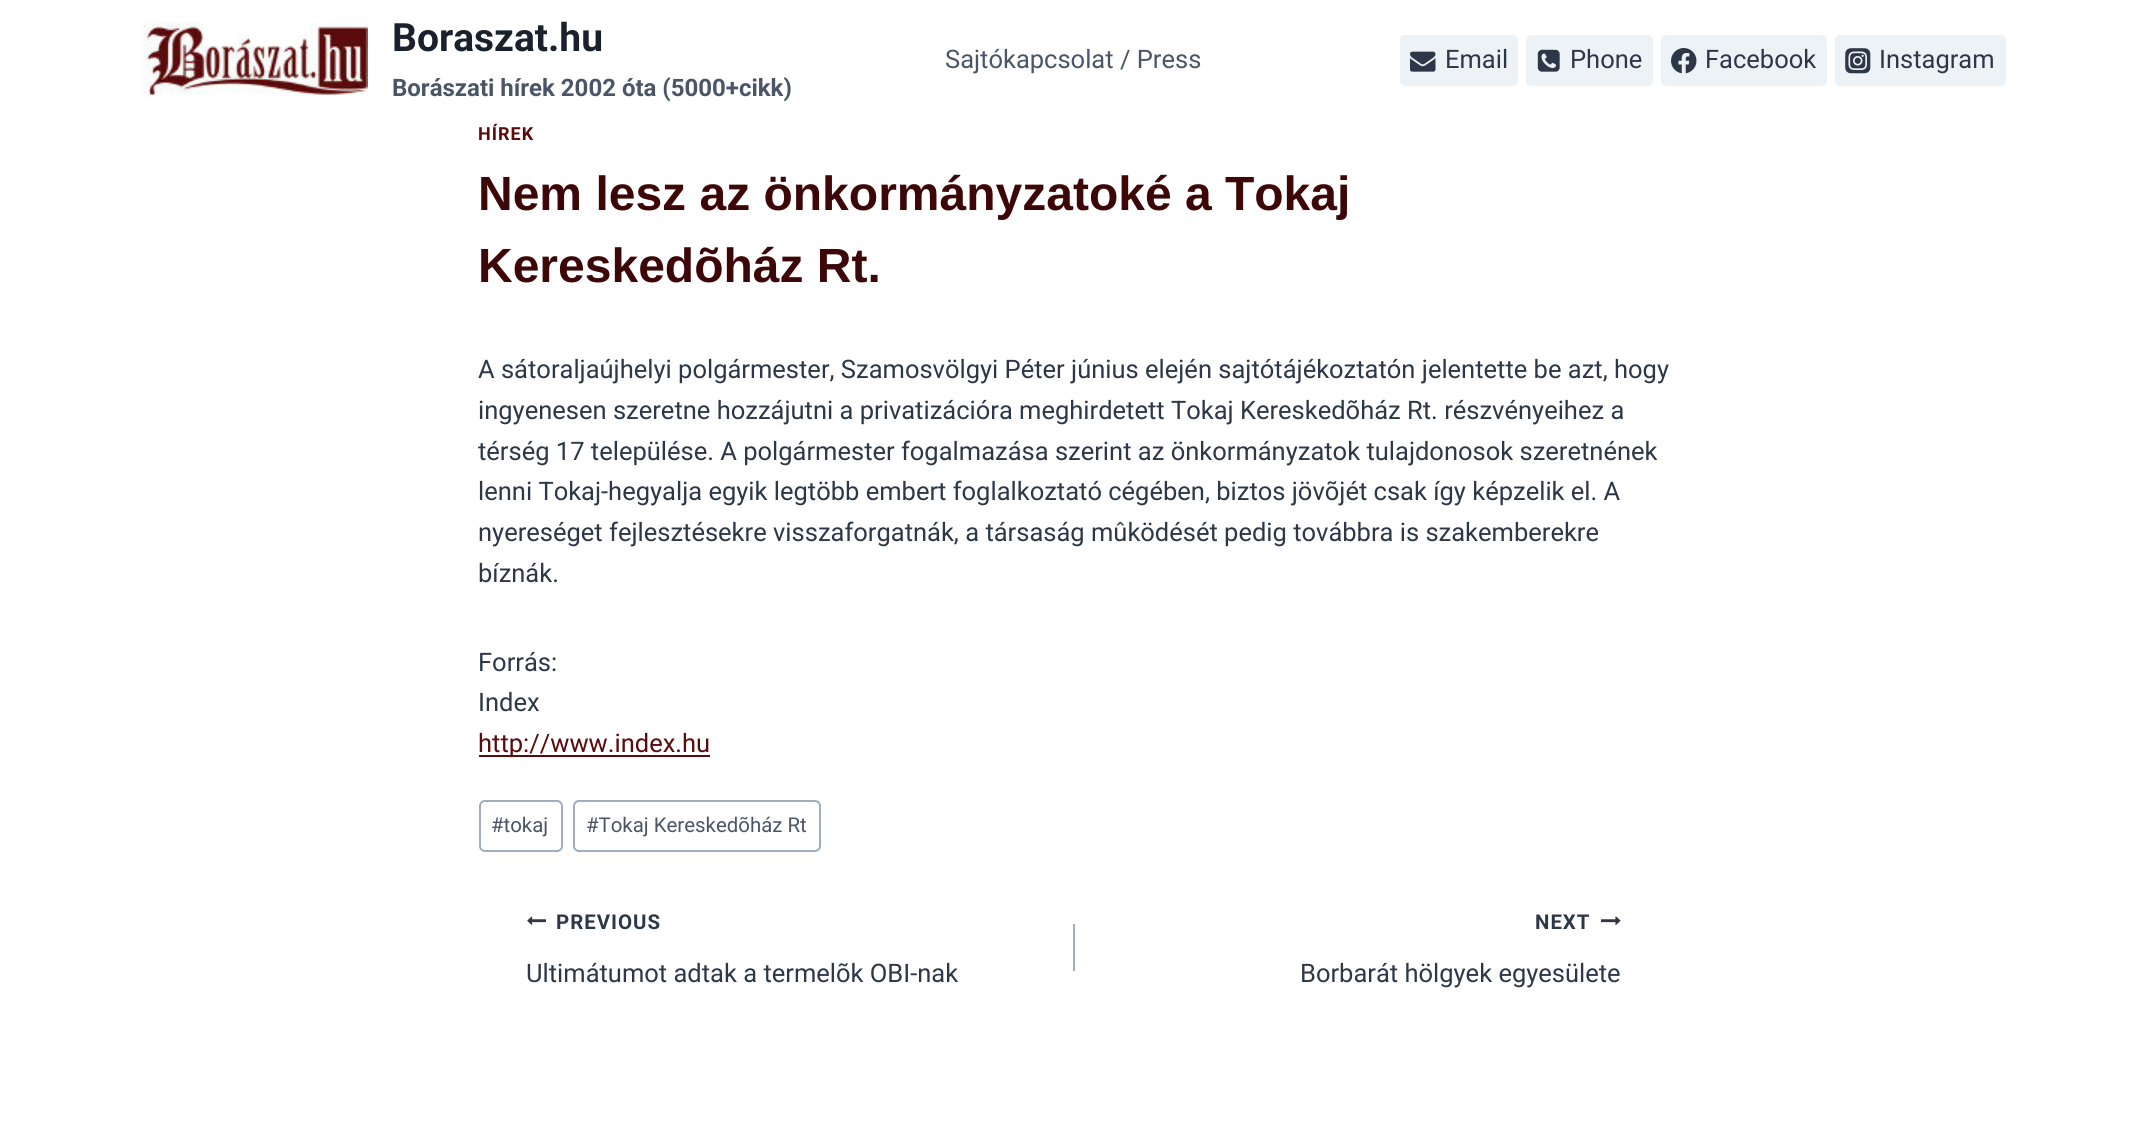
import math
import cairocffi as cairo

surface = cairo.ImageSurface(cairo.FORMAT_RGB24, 2146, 1122)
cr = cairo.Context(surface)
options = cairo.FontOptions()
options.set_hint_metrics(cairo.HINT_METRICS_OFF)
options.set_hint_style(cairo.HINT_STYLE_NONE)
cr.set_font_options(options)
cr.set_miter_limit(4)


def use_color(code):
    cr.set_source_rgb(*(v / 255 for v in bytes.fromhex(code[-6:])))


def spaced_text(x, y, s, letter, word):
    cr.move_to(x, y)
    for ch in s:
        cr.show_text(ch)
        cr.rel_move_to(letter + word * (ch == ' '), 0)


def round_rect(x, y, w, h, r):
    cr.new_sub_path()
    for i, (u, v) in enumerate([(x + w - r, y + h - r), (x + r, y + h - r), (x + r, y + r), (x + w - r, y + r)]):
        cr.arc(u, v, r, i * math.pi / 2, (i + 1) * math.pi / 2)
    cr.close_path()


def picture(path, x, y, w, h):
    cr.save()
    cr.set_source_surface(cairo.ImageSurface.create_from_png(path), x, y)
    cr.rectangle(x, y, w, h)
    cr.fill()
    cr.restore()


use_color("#ffffff")
cr.paint()
picture("img1.png", 142, 22, 226, 76)
cr.select_font_face("Roboto", cairo.FONT_SLANT_NORMAL, cairo.FONT_WEIGHT_BOLD)
cr.set_font_size(39)
use_color("#1a202c")
cr.move_to(392, 51)
cr.show_text("Boraszat.hu")
cr.set_font_size(24)
use_color("#4a5568")
cr.move_to(392, 96)
cr.show_text("Borászati hírek 2002 óta (5000+cikk)")
cr.select_font_face("Roboto")
cr.set_font_size(25.5)
cr.move_to(945, 68)
cr.show_text("Sajtókapcsolat / Press")
use_color("#edf2f7")
round_rect(1400, 35, 118, 51, 5)
cr.fill()
picture("img2.png", 1410, 51, 26, 21)
use_color("#2d3748")
cr.move_to(1445, 68)
cr.show_text("Email")
use_color("#edf2f7")
round_rect(1526, 35, 127, 51, 5)
cr.fill()
picture("img3.png", 1537, 49, 23, 23)
use_color("#2d3748")
cr.move_to(1570, 68)
cr.show_text("Phone")
use_color("#edf2f7")
round_rect(1661, 35, 166, 51, 5)
cr.fill()
picture("img4.png", 1671, 48, 26, 26)
use_color("#2d3748")
cr.move_to(1705, 68)
cr.show_text("Facebook")
use_color("#edf2f7")
round_rect(1835, 35, 171, 51, 5)
cr.fill()
picture("img5.png", 1845, 48, 26, 26)
use_color("#2d3748")
cr.move_to(1879, 68)
cr.show_text("Instagram")
cr.select_font_face("Roboto", cairo.FONT_SLANT_NORMAL, cairo.FONT_WEIGHT_BOLD)
cr.set_font_size(18)
use_color("#5a0b0c")
spaced_text(478, 140, "HÍREK", 1, 0)
cr.select_font_face("Liberation Sans", cairo.FONT_SLANT_NORMAL, cairo.FONT_WEIGHT_BOLD)
cr.set_font_size(48)
use_color("#3d0707")
cr.move_to(478, 210)
cr.show_text("Nem lesz az önkormányzatoké a Tokaj")
cr.move_to(478, 282)
cr.show_text("Kereskedõház Rt.")
cr.select_font_face("Roboto")
cr.set_font_size(25.5)
use_color("#2d3748")
cr.move_to(478, 378)
cr.show_text("A sátoraljaújhelyi polgármester, Szamosvölgyi Péter június elején sajtótájékoztatón jelentette be azt, hogy")
cr.move_to(478, 419)
cr.show_text("ingyenesen szeretne hozzájutni a privatizációra meghirdetett Tokaj Kereskedõház Rt. részvényeihez a")
cr.move_to(478, 460)
cr.show_text("térség 17 települése. A polgármester fogalmazása szerint az önkormányzatok tulajdonosok szeretnének")
cr.move_to(478, 500)
cr.show_text("lenni Tokaj-hegyalja egyik legtöbb embert foglalkoztató cégében, biztos jövõjét csak így képzelik el. A")
cr.move_to(478, 541)
cr.show_text("nyereséget fejlesztésekre visszaforgatnák, a társaság mûködését pedig továbbra is szakemberekre")
cr.move_to(478, 582)
cr.show_text("bíznák.")
cr.move_to(478, 671)
cr.show_text("Forrás:")
cr.move_to(478, 711)
cr.show_text("Index")
use_color("#5a0b0c")
cr.rectangle(479, 755, 231, 2)
cr.fill()
cr.move_to(478, 752)
cr.show_text("http://www.index.hu")
round_rect(480, 801, 82, 50, 5)
use_color("#a0aec0")
cr.stroke()
cr.set_font_size(20.4)
use_color("#4a5568")
cr.move_to(491, 832)
cr.show_text("#tokaj")
round_rect(574, 801, 246, 50, 5)
use_color("#a0aec0")
cr.stroke()
use_color("#4a5568")
cr.move_to(586, 832)
cr.show_text("#Tokaj Kereskedõház Rt")
picture("img6.png", 527, 916, 19, 9)
cr.select_font_face("Roboto", cairo.FONT_SLANT_NORMAL, cairo.FONT_WEIGHT_BOLD)
use_color("#2d3748")
spaced_text(556, 929, "PREVIOUS", 1, 0)
cr.select_font_face("Roboto")
cr.set_font_size(25.5)
cr.move_to(526, 982)
cr.show_text("Ultimátumot adtak a termelõk OBI-nak")
use_color("#a0aec0")
cr.rectangle(1073, 924, 2, 47)
cr.fill()
cr.select_font_face("Roboto", cairo.FONT_SLANT_NORMAL, cairo.FONT_WEIGHT_BOLD)
cr.set_font_size(20.4)
use_color("#2d3748")
spaced_text(1535, 929, "NEXT", 1, 0)
picture("img7.png", 1601, 916, 20, 9)
cr.select_font_face("Roboto")
cr.set_font_size(25.5)
cr.move_to(1300, 982)
cr.show_text("Borbarát hölgyek egyesülete")
surface.write_to_png("result.png")
